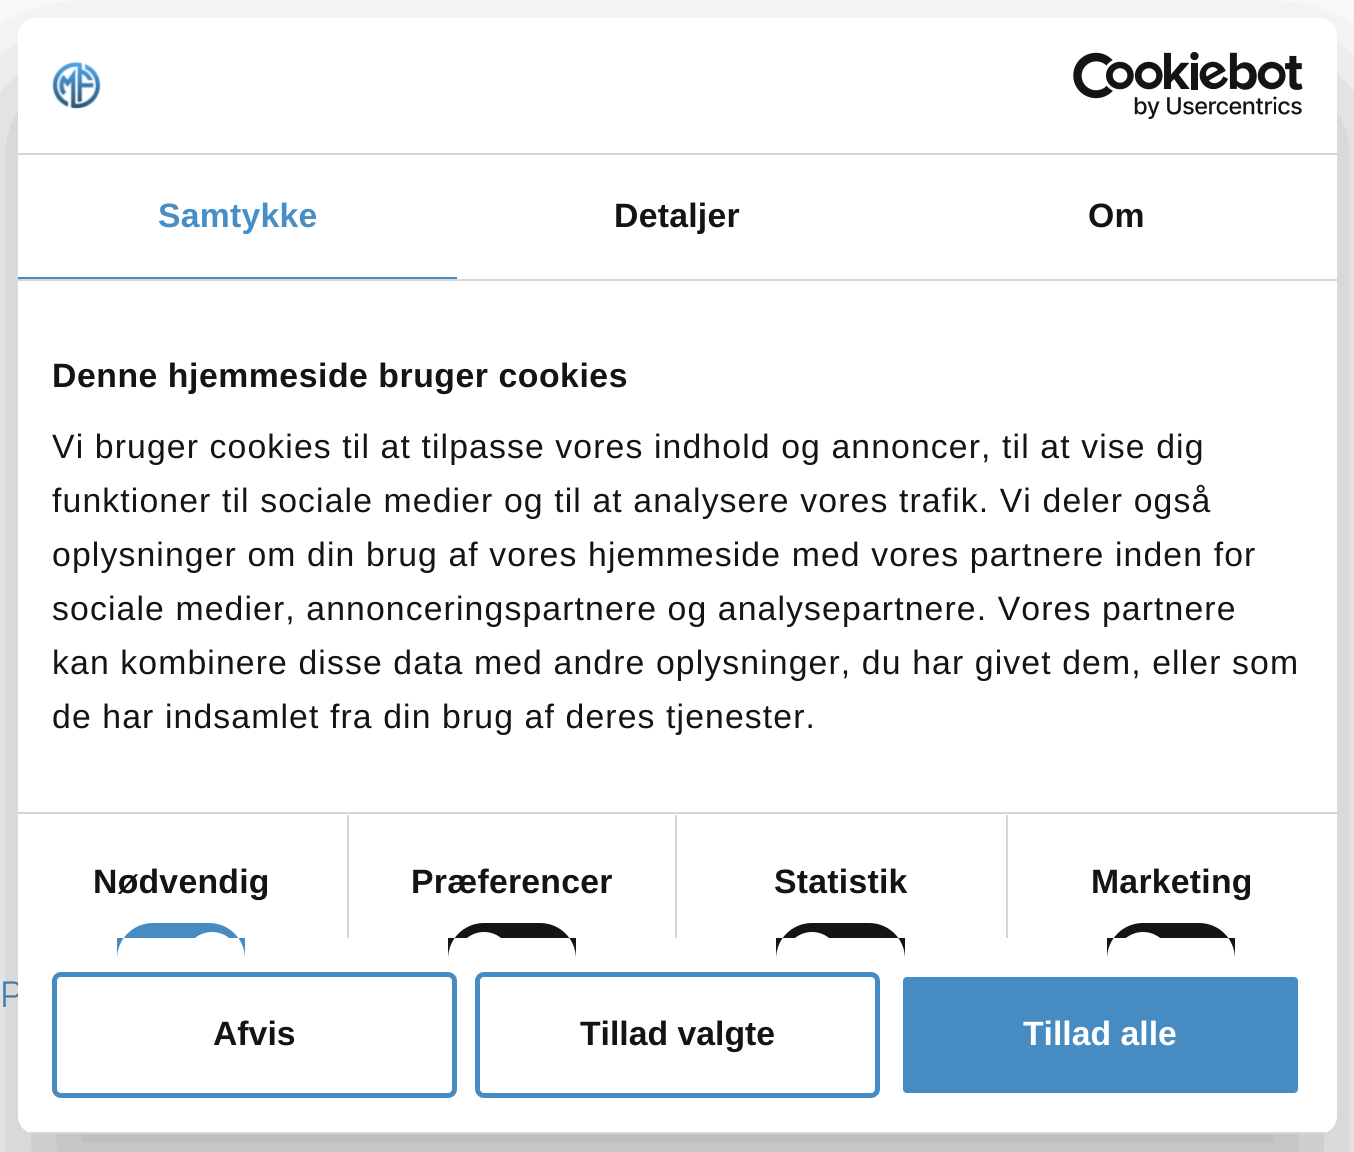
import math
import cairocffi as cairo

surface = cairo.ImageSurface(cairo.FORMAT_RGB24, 1354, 1152)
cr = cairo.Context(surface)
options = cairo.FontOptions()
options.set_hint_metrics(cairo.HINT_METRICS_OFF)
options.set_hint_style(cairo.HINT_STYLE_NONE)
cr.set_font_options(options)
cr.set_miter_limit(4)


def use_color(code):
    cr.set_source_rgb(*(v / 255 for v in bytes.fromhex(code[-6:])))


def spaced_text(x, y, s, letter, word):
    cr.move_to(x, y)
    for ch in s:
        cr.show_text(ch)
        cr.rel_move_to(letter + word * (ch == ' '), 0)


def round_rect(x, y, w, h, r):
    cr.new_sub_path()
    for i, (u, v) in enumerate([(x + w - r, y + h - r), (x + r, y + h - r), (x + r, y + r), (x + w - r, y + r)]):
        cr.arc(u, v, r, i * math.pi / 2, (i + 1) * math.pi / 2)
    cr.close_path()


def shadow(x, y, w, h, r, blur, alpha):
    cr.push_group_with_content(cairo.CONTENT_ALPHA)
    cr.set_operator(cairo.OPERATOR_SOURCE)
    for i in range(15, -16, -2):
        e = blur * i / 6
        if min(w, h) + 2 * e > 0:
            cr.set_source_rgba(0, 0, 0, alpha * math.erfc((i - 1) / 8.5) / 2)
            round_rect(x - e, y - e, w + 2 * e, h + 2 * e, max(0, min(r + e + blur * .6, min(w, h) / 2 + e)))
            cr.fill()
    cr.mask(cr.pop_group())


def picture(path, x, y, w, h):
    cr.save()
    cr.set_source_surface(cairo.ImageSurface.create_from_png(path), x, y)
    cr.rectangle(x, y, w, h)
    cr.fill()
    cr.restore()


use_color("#ffffff")
cr.paint()
cr.select_font_face("Raleway")
cr.set_font_size(36)
use_color("#478ec6")
cr.move_to(0, 1007)
cr.show_text("P")
use_color("#000000")
shadow(18, 90, 1319, 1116, 18, 76.5, 0.3)
use_color("#ffffff")
round_rect(18, 18, 1319, 1116, 18)
cr.fill()
use_color("#d6d6d6")
cr.rectangle(18, 153, 1319, 2)
cr.fill()
picture("img1.png", 52, 61, 49, 49)
picture("img2.png", 1073, 52, 230, 67)
cr.rectangle(18, 279, 1319, 2)
cr.fill()
use_color("#468cc3")
cr.rectangle(18, 277, 439, 2)
cr.fill()
cr.select_font_face("Liberation Sans", cairo.FONT_SLANT_NORMAL, cairo.FONT_WEIGHT_BOLD)
cr.set_font_size(33.75)
use_color("#478ec6")
spaced_text(158, 227, "Samtykke", 0.25, 0)
use_color("#141414")
spaced_text(614, 227, "Detaljer", 0.25, 0)
spaced_text(1088, 227, "Om", 0.25, 0)
use_color("#d6d6d6")
cr.rectangle(18, 812, 1319, 2)
cr.fill()
use_color("#141414")
spaced_text(52, 387, "Denne hjemmeside bruger cookies", 0.55, 0)
cr.select_font_face("Liberation Sans")
spaced_text(52, 458, "Vi bruger cookies til at tilpasse vores indhold og annoncer, til at vise dig", 1.12, 0)
spaced_text(52, 512, "funktioner til sociale medier og til at analysere vores trafik. Vi deler også", 1.12, 0)
spaced_text(52, 566, "oplysninger om din brug af vores hjemmeside med vores partnere inden for", 1.12, 0)
spaced_text(52, 620, "sociale medier, annonceringspartnere og analysepartnere. Vores partnere", 1.12, 0)
spaced_text(52, 674, "kan kombinere disse data med andre oplysninger, du har givet dem, eller som", 1.12, 0)
spaced_text(52, 728, "de har indsamlet fra din brug af deres tjenester.", 1.12, 0)
use_color("#d6d6d6")
cr.rectangle(347, 815, 2, 123)
cr.fill()
cr.select_font_face("Liberation Sans", cairo.FONT_SLANT_NORMAL, cairo.FONT_WEIGHT_BOLD)
use_color("#141414")
spaced_text(93, 893, "Nødvendig", 0.25, 0)
use_color("#468cc3")
cr.new_path()
cr.move_to(153, 923)
cr.line_to(209, 923)
cr.curve_to(229, 923, 245, 939, 245, 959)
cr.line_to(245, 938)
cr.line_to(117, 938)
cr.line_to(117, 959)
cr.curve_to(117, 939, 133, 923, 153, 923)
cr.close_path()
cr.fill()
use_color("#ffffff")
cr.new_path()
cr.move_to(212, 932)
cr.curve_to(227, 932, 239, 944, 239, 959)
cr.line_to(239, 938)
cr.line_to(185, 938)
cr.line_to(185, 959)
cr.curve_to(185, 944, 197, 932, 212, 932)
cr.close_path()
cr.fill()
use_color("#d6d6d6")
cr.rectangle(675, 815, 2, 123)
cr.fill()
use_color("#141414")
spaced_text(411, 893, "Præferencer", 0.25, 0)
cr.new_path()
cr.move_to(484, 923)
cr.line_to(540, 923)
cr.curve_to(560, 923, 576, 939, 576, 959)
cr.line_to(576, 938)
cr.line_to(448, 938)
cr.line_to(448, 959)
cr.curve_to(448, 939, 464, 923, 484, 923)
cr.close_path()
cr.fill()
use_color("#ffffff")
cr.new_path()
cr.move_to(484, 932)
cr.curve_to(499, 932, 511, 944, 511, 959)
cr.line_to(511, 938)
cr.line_to(457, 938)
cr.line_to(457, 959)
cr.curve_to(457, 944, 469, 932, 484, 932)
cr.close_path()
cr.fill()
use_color("#d6d6d6")
cr.rectangle(1006, 815, 2, 123)
cr.fill()
use_color("#141414")
spaced_text(774, 893, "Statistik", 0.25, 0)
cr.new_path()
cr.move_to(812, 923)
cr.line_to(869, 923)
cr.curve_to(889, 923, 905, 939, 905, 959)
cr.line_to(905, 938)
cr.line_to(776, 938)
cr.line_to(776, 959)
cr.curve_to(776, 939, 792, 923, 812, 923)
cr.close_path()
cr.fill()
use_color("#ffffff")
cr.new_path()
cr.move_to(812, 932)
cr.curve_to(827, 932, 839, 944, 839, 959)
cr.line_to(839, 938)
cr.line_to(785, 938)
cr.line_to(785, 959)
cr.curve_to(785, 944, 797, 932, 812, 932)
cr.close_path()
cr.fill()
use_color("#141414")
spaced_text(1091, 893, "Marketing", 0.25, 0)
cr.new_path()
cr.move_to(1143, 923)
cr.line_to(1199, 923)
cr.curve_to(1219, 923, 1235, 939, 1235, 959)
cr.line_to(1235, 938)
cr.line_to(1107, 938)
cr.line_to(1107, 959)
cr.curve_to(1107, 939, 1123, 923, 1143, 923)
cr.close_path()
cr.fill()
use_color("#ffffff")
cr.new_path()
cr.move_to(1143, 932)
cr.curve_to(1158, 932, 1170, 944, 1170, 959)
cr.line_to(1170, 938)
cr.line_to(1116, 938)
cr.line_to(1116, 959)
cr.curve_to(1116, 944, 1128, 932, 1143, 932)
cr.close_path()
cr.fill()
cr.save()
round_rect(18, 18, 1319, 1116, 18)
cr.clip()
use_color("#d6d6d6")
cr.rectangle(28, 1132, 1299, 2)
cr.fill()
cr.restore()
round_rect(54.5, 974.5, 400, 121, 6.5)
use_color("#468cc3")
cr.set_line_width(5)
cr.stroke()
use_color("#141414")
cr.move_to(213, 1045)
cr.show_text("Afvis")
round_rect(477.5, 974.5, 400, 121, 6.5)
use_color("#468cc3")
cr.stroke()
use_color("#141414")
cr.move_to(580, 1045)
cr.show_text("Tillad valgte")
use_color("#468cc3")
round_rect(900.5, 974.5, 400, 121, 6.5)
cr.fill_preserve()
use_color("#ffffff")
cr.stroke()
cr.move_to(1023, 1045)
cr.show_text("Tillad alle")
surface.write_to_png("result.png")
